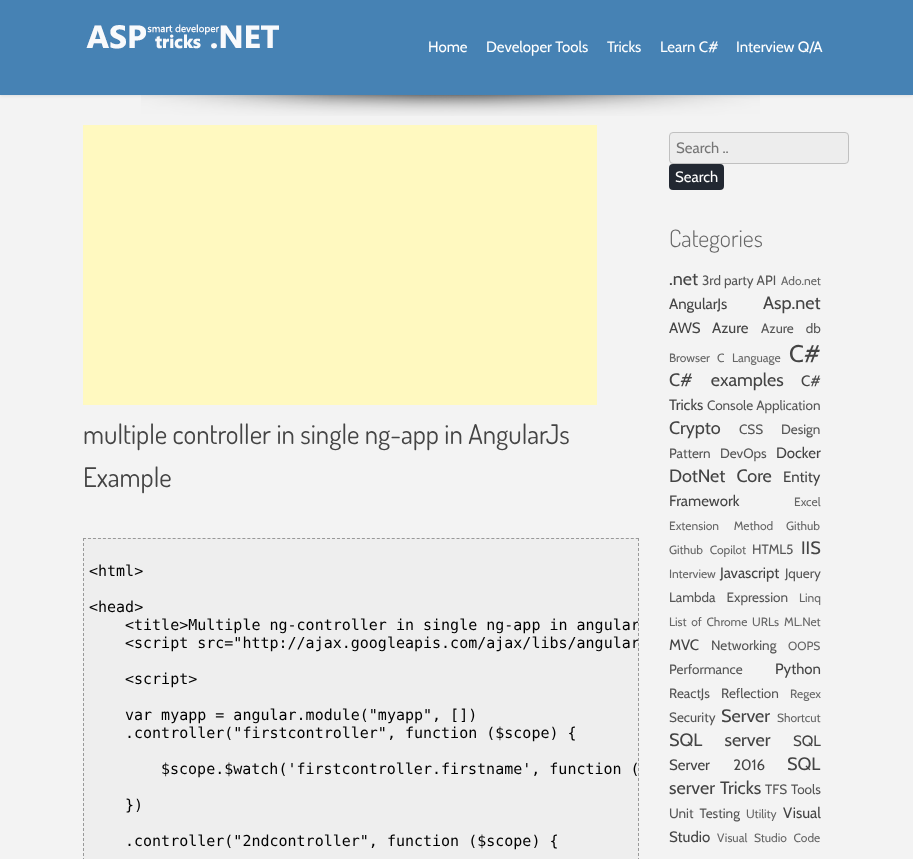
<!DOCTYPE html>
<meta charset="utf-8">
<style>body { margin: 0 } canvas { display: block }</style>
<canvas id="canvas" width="913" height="859"></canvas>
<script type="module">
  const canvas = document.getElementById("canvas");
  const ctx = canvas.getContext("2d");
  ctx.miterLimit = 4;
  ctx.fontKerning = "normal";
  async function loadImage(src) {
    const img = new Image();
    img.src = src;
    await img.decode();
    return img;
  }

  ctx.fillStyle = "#f3f3f3";
  ctx.fillRect(0, 0, 913, 859);
  ctx.fillStyle = "#dddddd";
  ctx.filter = "blur(1.5px)";
  ctx.beginPath();
  ctx.rect(0, 1, 913, 95);
  ctx.fill();
  ctx.filter = "none";
  ctx.fillStyle = "#4682b4";
  ctx.fillRect(0, 0, 913, 95);
  ctx.drawImage(await loadImage("img1.png"), 86, 24, 193, 25);
  ctx.font = "15px Cabin";
  ctx.fillStyle = "#ffffff";
  ctx.fillText("Home", 428, 52);
  ctx.fillText("Developer Tools", 486, 52);
  ctx.fillText("Tricks", 607, 52);
  ctx.fillText("Learn C#", 660, 52);
  ctx.fillText("Interview Q/A", 736, 52);
  ctx.drawImage(await loadImage("img2.png"), 141, 95, 619, 21);
  ctx.fillStyle = "#fff9c0";
  ctx.fillRect(83, 125, 514, 280);
  ctx.font = "27px Dosis";
  ctx.fillStyle = "#444444";
  ctx.fillText("multiple controller in single ng-app in AngularJs", 83, 444);
  ctx.fillText("Example", 83, 487);
  ctx.fillStyle = "#eeeeee";
  ctx.fillRect(83, 538, 556, 321);
  ctx.beginPath();
  ctx.moveTo(83, 538.5);
  ctx.lineTo(639, 538.5);
  ctx.strokeStyle = "#999999";
  ctx.setLineDash([3, 1.98]);
  ctx.stroke();
  ctx.beginPath();
  ctx.moveTo(638.5, 538);
  ctx.lineTo(638.5, 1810);
  ctx.setLineDash([3, 2]);
  ctx.stroke();
  ctx.beginPath();
  ctx.moveTo(83.5, 538);
  ctx.lineTo(83.5, 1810);
  ctx.stroke();
  ctx.font = "15px DejaVu Sans Mono";
  ctx.fillStyle = "#000000";
  ctx.fillText("<html>", 89, 576);
  ctx.fillText("<head>", 89, 612);
  ctx.save();
  ctx.beginPath();
  ctx.rect(84, 539, 554, 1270);
  ctx.clip();
  ctx.fillText("<title>Multiple ng-controller in single ng-app in angular", 125, 630);
  ctx.fillText("<script src=\"http://ajax.googleapis.com/ajax/libs/angular", 125, 648);
  ctx.restore();
  ctx.fillText("<script>", 125, 684);
  ctx.fillText("var myapp = angular.module(\"myapp\", [])", 125, 720);
  ctx.fillText(".controller(\"firstcontroller\", function ($scope) {", 125, 738);
  ctx.fillText("$scope.$watch('firstcontroller.firstname', function (", 161, 774);
  ctx.fillText("})", 125, 810);
  ctx.fillText(".controller(\"2ndcontroller\", function ($scope) {", 125, 846);
  ctx.fillStyle = "#ededed";
  ctx.beginPath();
  ctx.roundRect(669.5, 132.5, 179, 31, 3.5);
  ctx.fill();
  ctx.strokeStyle = "#c0c0c0";
  ctx.setLineDash([]);
  ctx.stroke();
  ctx.font = "15px Cabin";
  ctx.fillStyle = "#757575";
  ctx.fillText("Search ..", 676, 153);
  ctx.fillStyle = "#222832";
  ctx.beginPath();
  ctx.roundRect(669, 164, 55, 26, 4);
  ctx.fill();
  ctx.fillStyle = "#ffffff";
  ctx.fillText("Search", 675, 182);
  ctx.font = "300 24px Dosis";
  ctx.fillStyle = "#666666";
  ctx.fillText("Categories", 669, 247);
  ctx.font = "18px Cabin";
  ctx.fillStyle = "#444444";
  ctx.fillText(".net", 669, 285);
  ctx.font = "13.5px Cabin";
  ctx.fillStyle = "#565656";
  ctx.fillText("3rd party API", 702, 285);
  ctx.font = "12px Cabin";
  ctx.fillStyle = "#666666";
  ctx.fillText("Ado.net", 781, 285);
  ctx.font = "15px Cabin";
  ctx.fillStyle = "#444444";
  ctx.fillText("AngularJs", 669, 309);
  ctx.font = "18px Cabin";
  ctx.fillText("Asp.net", 763, 309);
  ctx.font = "15px Cabin";
  ctx.fillText("AWS", 669, 333);
  ctx.fillText("Azure", 712, 333);
  ctx.wordSpacing = "9px";
  ctx.font = "13.5px Cabin";
  ctx.fillStyle = "#565656";
  ctx.fillText("Azure db", 761, 333);
  ctx.wordSpacing = "0px";
  ctx.font = "12px Cabin";
  ctx.fillStyle = "#666666";
  ctx.fillText("Browser", 669, 362);
  ctx.wordSpacing = "5px";
  ctx.fillText("C Language", 717, 362);
  ctx.wordSpacing = "0px";
  ctx.font = "24px Cabin";
  ctx.fillStyle = "#444444";
  ctx.fillText("C#", 789, 362);
  ctx.wordSpacing = "14px";
  ctx.font = "18px Cabin";
  ctx.fillText("C# examples", 669, 386);
  ctx.wordSpacing = "0px";
  ctx.font = "15px Cabin";
  ctx.fillText("C#", 801, 386);
  ctx.fillText("Tricks", 669, 410);
  ctx.font = "13.5px Cabin";
  ctx.fillStyle = "#565656";
  ctx.fillText("Console Application", 707, 410);
  ctx.font = "18px Cabin";
  ctx.fillStyle = "#444444";
  ctx.fillText("Crypto", 669, 434);
  ctx.font = "13.5px Cabin";
  ctx.fillStyle = "#565656";
  ctx.fillText("CSS", 739, 434);
  ctx.fillText("Design", 781, 434);
  ctx.fillText("Pattern", 669, 458);
  ctx.fillText("DevOps", 720, 458);
  ctx.font = "15px Cabin";
  ctx.fillStyle = "#444444";
  ctx.fillText("Docker", 776, 458);
  ctx.wordSpacing = "7px";
  ctx.font = "18px Cabin";
  ctx.fillText("DotNet Core", 669, 482);
  ctx.wordSpacing = "0px";
  ctx.font = "15px Cabin";
  ctx.fillText("Entity", 783, 482);
  ctx.fillText("Framework", 669, 506);
  ctx.font = "12px Cabin";
  ctx.fillStyle = "#666666";
  ctx.fillText("Excel", 794, 506);
  ctx.wordSpacing = "12px";
  ctx.fillText("Extension Method", 669, 530);
  ctx.wordSpacing = "0px";
  ctx.fillText("Github", 786, 530);
  ctx.wordSpacing = "4px";
  ctx.fillText("Github Copilot", 669, 554);
  ctx.wordSpacing = "0px";
  ctx.font = "13.5px Cabin";
  ctx.fillStyle = "#565656";
  ctx.fillText("HTML5", 752, 554);
  ctx.font = "18px Cabin";
  ctx.fillStyle = "#444444";
  ctx.fillText("IIS", 801, 554);
  ctx.font = "12px Cabin";
  ctx.fillStyle = "#666666";
  ctx.fillText("Interview", 669, 578);
  ctx.font = "15px Cabin";
  ctx.fillStyle = "#444444";
  ctx.fillText("Javascript", 720, 578);
  ctx.font = "13.5px Cabin";
  ctx.fillStyle = "#565656";
  ctx.fillText("Jquery", 785, 578);
  ctx.wordSpacing = "8px";
  ctx.fillText("Lambda Expression", 669, 602);
  ctx.wordSpacing = "0px";
  ctx.font = "12px Cabin";
  ctx.fillStyle = "#666666";
  ctx.fillText("Linq", 799, 602);
  ctx.wordSpacing = "2px";
  ctx.fillText("List of Chrome URLs", 669, 626);
  ctx.wordSpacing = "0px";
  ctx.fillText("ML.Net", 784, 626);
  ctx.font = "15px Cabin";
  ctx.fillStyle = "#444444";
  ctx.fillText("MVC", 669, 650);
  ctx.font = "13.5px Cabin";
  ctx.fillStyle = "#565656";
  ctx.fillText("Networking", 711, 650);
  ctx.font = "12px Cabin";
  ctx.fillStyle = "#666666";
  ctx.fillText("OOPS", 788, 650);
  ctx.font = "13.5px Cabin";
  ctx.fillStyle = "#565656";
  ctx.fillText("Performance", 669, 674);
  ctx.font = "15px Cabin";
  ctx.fillStyle = "#444444";
  ctx.fillText("Python", 775, 674);
  ctx.font = "13.5px Cabin";
  ctx.fillStyle = "#565656";
  ctx.fillText("ReactJs", 669, 698);
  ctx.fillText("Reflection", 721, 698);
  ctx.font = "12px Cabin";
  ctx.fillStyle = "#666666";
  ctx.fillText("Regex", 790, 698);
  ctx.font = "13.5px Cabin";
  ctx.fillStyle = "#565656";
  ctx.fillText("Security", 669, 722);
  ctx.font = "18px Cabin";
  ctx.fillStyle = "#444444";
  ctx.fillText("Server", 721, 722);
  ctx.font = "12px Cabin";
  ctx.fillStyle = "#666666";
  ctx.fillText("Shortcut", 777, 722);
  ctx.wordSpacing = "18px";
  ctx.font = "18px Cabin";
  ctx.fillStyle = "#444444";
  ctx.fillText("SQL server", 669, 746);
  ctx.wordSpacing = "0px";
  ctx.font = "15px Cabin";
  ctx.fillText("SQL", 793, 746);
  ctx.wordSpacing = "20px";
  ctx.fillText("Server 2016", 669, 770);
  ctx.wordSpacing = "0px";
  ctx.font = "18px Cabin";
  ctx.fillText("SQL", 787, 770);
  ctx.wordSpacing = "1px";
  ctx.fillText("server Tricks", 669, 794);
  ctx.wordSpacing = "0px";
  ctx.font = "13.5px Cabin";
  ctx.fillStyle = "#565656";
  ctx.fillText("TFS", 765, 794);
  ctx.fillText("Tools", 791, 794);
  ctx.wordSpacing = "3px";
  ctx.fillText("Unit Testing", 669, 818);
  ctx.wordSpacing = "0px";
  ctx.font = "12px Cabin";
  ctx.fillStyle = "#666666";
  ctx.fillText("Utility", 746, 818);
  ctx.font = "15px Cabin";
  ctx.fillStyle = "#444444";
  ctx.fillText("Visual", 783, 818);
  ctx.fillText("Studio", 669, 842);
  ctx.wordSpacing = "4px";
  ctx.font = "12px Cabin";
  ctx.fillStyle = "#666666";
  ctx.fillText("Visual Studio Code", 717, 842);
</script>
